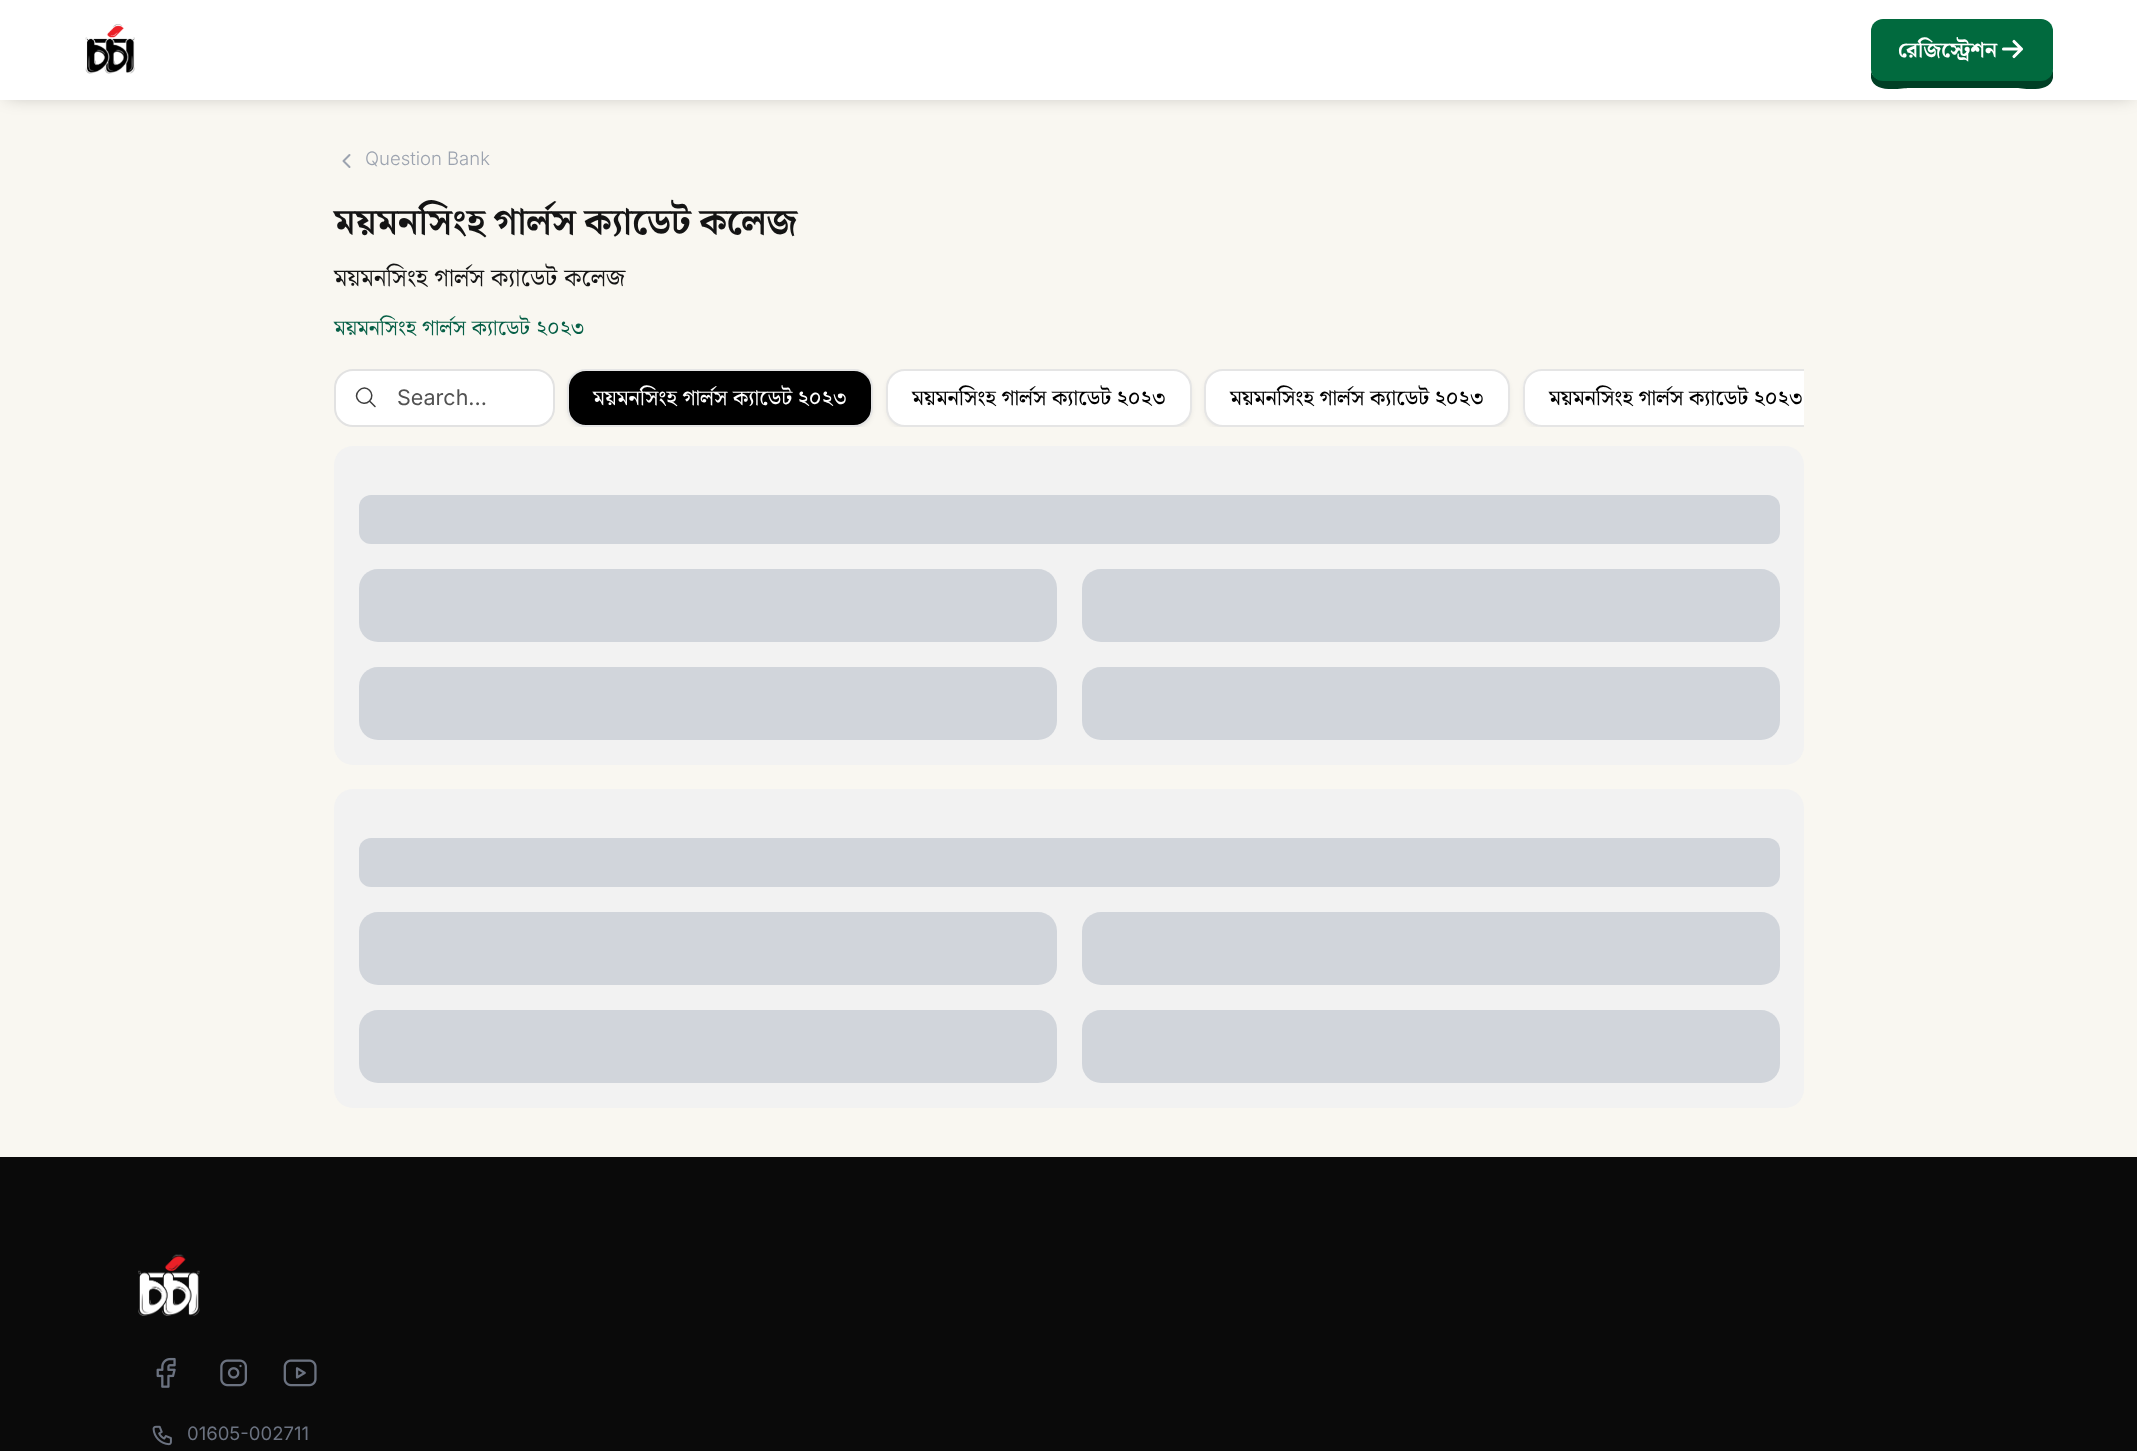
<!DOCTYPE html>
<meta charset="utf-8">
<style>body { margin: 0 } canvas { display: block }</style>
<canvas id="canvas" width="2137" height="1451"></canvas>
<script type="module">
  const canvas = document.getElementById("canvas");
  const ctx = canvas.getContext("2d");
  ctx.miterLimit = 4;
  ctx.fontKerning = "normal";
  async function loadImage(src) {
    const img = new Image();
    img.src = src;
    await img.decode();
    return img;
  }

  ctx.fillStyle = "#ffffff";
  ctx.fillRect(0, 0, 2137, 1451);
  ctx.fillStyle = "#f9f7f1";
  ctx.fillRect(0, 100, 2137, 1057);
  ctx.save();
  ctx.beginPath();
  ctx.moveTo(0, 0);
  ctx.lineTo(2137, 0);
  ctx.lineTo(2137, 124);
  ctx.lineTo(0, 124);
  ctx.closePath();
  ctx.moveTo(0, 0);
  ctx.lineTo(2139, 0);
  ctx.lineTo(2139, 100);
  ctx.lineTo(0, 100);
  ctx.closePath();
  ctx.clip("evenodd");
  ctx.fillStyle = "rgba(0, 0, 0, 0.25)";
  ctx.filter = "blur(9px)";
  ctx.beginPath();
  ctx.rect(7, 11, 2125, 85);
  ctx.fill();
  ctx.filter = "none";
  ctx.restore();
  ctx.drawImage(await loadImage("img1.png"), 85, 24, 50, 50);
  ctx.fillStyle = "#003f25";
  ctx.beginPath();
  ctx.moveTo(1871, 71);
  ctx.lineTo(1871, 78);
  ctx.bezierCurveTo(1874, 94, 1902, 88, 1909, 88);
  ctx.lineTo(2015, 88);
  ctx.bezierCurveTo(2022, 88, 2050, 94, 2053, 78);
  ctx.lineTo(2053, 36);
  ctx.lineTo(2053, 68);
  ctx.bezierCurveTo(2053, 75, 2047, 80, 2040, 80);
  ctx.lineTo(1883, 80);
  ctx.bezierCurveTo(1877, 80, 1872, 76, 1871, 71);
  ctx.closePath();
  ctx.fill();
  ctx.fillStyle = "#016a3e";
  ctx.beginPath();
  ctx.roundRect(1871, 19, 182, 62, 12);
  ctx.fill();
  ctx.font = "bold 21.5px Noto Serif Bengali";
  ctx.fillStyle = "#ffffff";
  ctx.fillText("রেজিস্ট্রেশন", 1898, 57);
  ctx.beginPath();
  ctx.moveTo(2014, 41.5);
  ctx.lineTo(2021.5, 49);
  ctx.moveTo(2021.5, 49);
  ctx.lineTo(2014, 56.5);
  ctx.moveTo(2021.5, 49);
  ctx.lineTo(2003.5, 49);
  ctx.strokeStyle = "#ffffff";
  ctx.lineWidth = 3.1;
  ctx.lineCap = "round";
  ctx.lineJoin = "round";
  ctx.stroke();
  ctx.beginPath();
  ctx.moveTo(349.5, 155);
  ctx.lineTo(343.5, 161);
  ctx.lineTo(349.5, 167);
  ctx.strokeStyle = "#9ca3af";
  ctx.lineWidth = 2;
  ctx.stroke();
  ctx.font = "300 18.5px Inter";
  ctx.fillStyle = "#9ca3af";
  ctx.fillText("Question Bank", 365, 165);
  ctx.wordSpacing = "-1px";
  ctx.font = "bold 36.75px Noto Serif Bengali";
  ctx.fillStyle = "#141414";
  ctx.fillText("ময়মনসিংহ গার্লস ক্যাডেট কলেজ", 334, 234);
  ctx.wordSpacing = "0.5px";
  ctx.font = "24.5px Noto Serif Bengali";
  ctx.fillText("ময়মনসিংহ গার্লস ক্যাডেট কলেজ", 334, 286);
  ctx.font = "21.5px Noto Serif Bengali";
  ctx.fillStyle = "#065f46";
  ctx.fillText("ময়মনসিংহ গার্লস ক্যাডেট ২০২৩", 334, 335);
  ctx.fillStyle = "#ffffff";
  ctx.beginPath();
  ctx.roundRect(335, 370, 219, 56, 18);
  ctx.fill();
  ctx.strokeStyle = "#e2e2e2";
  ctx.lineJoin = "miter";
  ctx.stroke();
  ctx.beginPath();
  ctx.moveTo(375, 406.5);
  ctx.lineTo(369.5, 401);
  ctx.moveTo(369.5, 401);
  ctx.bezierCurveTo(376.5, 394, 366, 383, 359, 390.5);
  ctx.bezierCurveTo(351.5, 397.5, 362.5, 408, 369.5, 401);
  ctx.closePath();
  ctx.strokeStyle = "#3e3e3e";
  ctx.lineWidth = 1.5;
  ctx.lineJoin = "round";
  ctx.stroke();
  ctx.wordSpacing = "0px";
  ctx.font = "21.5px Inter";
  ctx.fillStyle = "#525252";
  ctx.fillText("Search...", 397, 405);
  ctx.save();
  ctx.beginPath();
  ctx.rect(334, 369, 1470, 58);
  ctx.clip();
  ctx.fillStyle = "rgba(0, 0, 0, 0.05)";
  ctx.filter = "blur(2px)";
  ctx.beginPath();
  ctx.roundRect(567, 371, 306, 58, 19);
  ctx.fill();
  ctx.filter = "none";
  ctx.restore();
  ctx.fillStyle = "#000000";
  ctx.beginPath();
  ctx.roundRect(568, 370, 304, 56, 18);
  ctx.fill();
  ctx.strokeStyle = "#e5e5e5";
  ctx.lineWidth = 2;
  ctx.lineJoin = "miter";
  ctx.stroke();
  ctx.font = "500 21.5px Noto Serif Bengali";
  ctx.fillStyle = "#ffffff";
  ctx.fillText("ময়মনসিংহ গার্লস ক্যাডেট ২০২৩", 593, 405);
  ctx.save();
  ctx.beginPath();
  ctx.rect(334, 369, 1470, 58);
  ctx.clip();
  ctx.fillStyle = "rgba(0, 0, 0, 0.05)";
  ctx.filter = "blur(2px)";
  ctx.beginPath();
  ctx.roundRect(886, 371, 306, 58, 19);
  ctx.fill();
  ctx.filter = "none";
  ctx.restore();
  ctx.beginPath();
  ctx.roundRect(887, 370, 304, 56, 18);
  ctx.fill();
  ctx.stroke();
  ctx.fillStyle = "#000000";
  ctx.fillText("ময়মনসিংহ গার্লস ক্যাডেট ২০২৩", 912, 405);
  ctx.save();
  ctx.beginPath();
  ctx.rect(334, 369, 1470, 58);
  ctx.clip();
  ctx.fillStyle = "rgba(0, 0, 0, 0.05)";
  ctx.filter = "blur(2px)";
  ctx.beginPath();
  ctx.roundRect(1204, 371, 306, 58, 19);
  ctx.fill();
  ctx.filter = "none";
  ctx.restore();
  ctx.fillStyle = "#ffffff";
  ctx.beginPath();
  ctx.roundRect(1205, 370, 304, 56, 18);
  ctx.fill();
  ctx.stroke();
  ctx.fillStyle = "#000000";
  ctx.fillText("ময়মনসিংহ গার্লস ক্যাডেট ২০২৩", 1230, 405);
  ctx.save();
  ctx.beginPath();
  ctx.rect(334, 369, 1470, 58);
  ctx.clip();
  ctx.fillStyle = "rgba(0, 0, 0, 0.05)";
  ctx.filter = "blur(2px)";
  ctx.beginPath();
  ctx.roundRect(1523, 371, 306, 58, 19);
  ctx.fill();
  ctx.filter = "none";
  ctx.restore();
  ctx.fillStyle = "#ffffff";
  ctx.beginPath();
  ctx.roundRect(1523, 369, 281, 58, [19, 0, 0, 19]);
  ctx.fill();
  ctx.save();
  ctx.beginPath();
  ctx.rect(334, 369, 1470, 58);
  ctx.clip();
  ctx.beginPath();
  ctx.roundRect(1524, 370, 304, 56, 18);
  ctx.stroke();
  ctx.restore();
  ctx.fillStyle = "#000000";
  ctx.fillText("ময়মনসিংহ গার্লস ক্যাডেট ২০২৩", 1549, 405);
  ctx.fillStyle = "#f2f2f2";
  ctx.beginPath();
  ctx.roundRect(334, 446, 1470, 319, 19);
  ctx.fill();
  ctx.fillStyle = "#d1d5db";
  ctx.beginPath();
  ctx.roundRect(359, 495, 1421, 49, 12);
  ctx.fill();
  ctx.beginPath();
  ctx.roundRect(359, 569, 698, 73, 19);
  ctx.fill();
  ctx.beginPath();
  ctx.roundRect(1082, 569, 698, 73, 19);
  ctx.fill();
  ctx.beginPath();
  ctx.roundRect(359, 667, 698, 73, 19);
  ctx.fill();
  ctx.beginPath();
  ctx.roundRect(1082, 667, 698, 73, 19);
  ctx.fill();
  ctx.fillStyle = "#f2f2f2";
  ctx.beginPath();
  ctx.roundRect(334, 789, 1470, 319, 19);
  ctx.fill();
  ctx.fillStyle = "#d1d5db";
  ctx.beginPath();
  ctx.roundRect(359, 838, 1421, 49, 12);
  ctx.fill();
  ctx.beginPath();
  ctx.roundRect(359, 912, 698, 73, 19);
  ctx.fill();
  ctx.beginPath();
  ctx.roundRect(1082, 912, 698, 73, 19);
  ctx.fill();
  ctx.beginPath();
  ctx.roundRect(359, 1010, 698, 73, 19);
  ctx.fill();
  ctx.beginPath();
  ctx.roundRect(1082, 1010, 698, 73, 19);
  ctx.fill();
  ctx.fillStyle = "#0a0a0a";
  ctx.fillRect(0, 1157, 2137, 294);
  ctx.drawImage(await loadImage("img2.png"), 138, 1254, 62, 62);
  ctx.drawImage(await loadImage("img3.png"), 156, 1357, 20, 31);
  ctx.drawImage(await loadImage("img4.png"), 220, 1359, 27, 28);
  ctx.drawImage(await loadImage("img5.png"), 283, 1359, 34, 28);
  ctx.drawImage(await loadImage("img6.png"), 152, 1425, 20, 21);
  ctx.font = "18.5px Inter";
  ctx.fillStyle = "#6b7280";
  ctx.fillText("01605-002711", 187, 1440);
</script>
